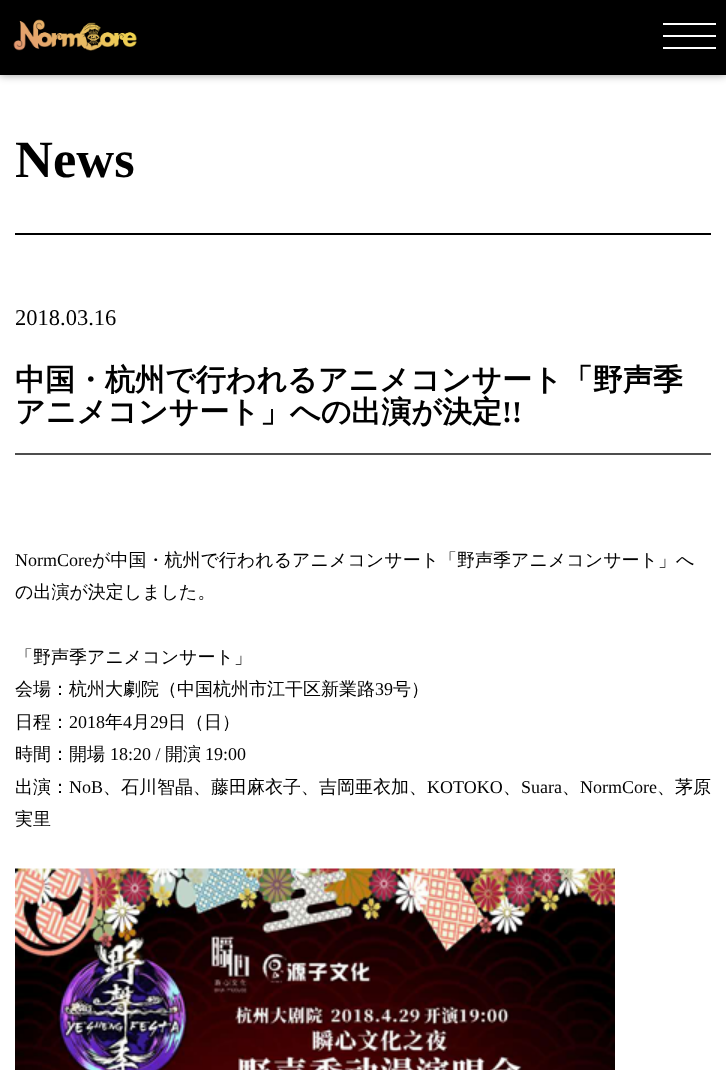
<!DOCTYPE html>
<meta charset="utf-8">
<style>body { margin: 0 } canvas { display: block }</style>
<canvas id="canvas" width="726" height="1070"></canvas>
<script type="module">
  const canvas = document.getElementById("canvas");
  const ctx = canvas.getContext("2d");
  ctx.miterLimit = 4;
  ctx.fontKerning = "normal";
  async function loadImage(src) {
    const img = new Image();
    img.src = src;
    await img.decode();
    return img;
  }

  ctx.fillStyle = "#ffffff";
  ctx.fillRect(0, 0, 726, 1070);
  ctx.fillStyle = "rgba(0, 0, 0, 0.4)";
  ctx.filter = "blur(4px)";
  ctx.beginPath();
  ctx.rect(0, 0, 726, 75);
  ctx.fill();
  ctx.filter = "none";
  ctx.fillStyle = "#000000";
  ctx.fillRect(0, 0, 726, 75);
  ctx.drawImage(await loadImage("img1.png"), 13, 19, 124, 32);
  ctx.fillStyle = "#ffffff";
  ctx.fillRect(663, 35, 53, 2);
  ctx.fillRect(663, 23, 53, 2);
  ctx.fillRect(663, 47, 53, 2);
  ctx.fillStyle = "#000000";
  ctx.fillRect(15, 233, 696, 2);
  ctx.font = "bold 52.5px Liberation Serif";
  ctx.fillText("News", 15, 177);
  ctx.font = "22.5px Liberation Serif";
  ctx.fillText("2018.03.16", 15, 325);
  ctx.fillStyle = "#4d4d4d";
  ctx.fillRect(15, 453, 696, 2);
  ctx.font = "bold 30px WenQuanYi Zen Hei";
  ctx.fillStyle = "#000000";
  ctx.fillText("中国・杭州で行われるアニメコンサート「野声季", 15, 390);
  ctx.fillText("アニメコンサート」への出演が決定", 15, 422);
  ctx.font = "bold 30px Liberation Serif";
  ctx.fillText("!!", 502, 422);
  ctx.font = "18px Liberation Serif";
  ctx.fillText("NormCore", 15, 566);
  ctx.font = "500 18px WenQuanYi Zen Hei";
  ctx.fillText("が中国・杭州で行われるアニメコンサート「野声季アニメコンサート」へ", 92, 566);
  ctx.fillText("の出演が決定しました。", 15, 598);
  ctx.fillText("「野声季アニメコンサート」", 15, 663);
  ctx.fillText("会場：杭州大劇院（中国杭州市江干区新業路", 15, 695);
  ctx.font = "18px Liberation Serif";
  ctx.fillText("39", 375, 695);
  ctx.font = "500 18px WenQuanYi Zen Hei";
  ctx.fillText("号）", 393, 695);
  ctx.fillText("日程：", 15, 728);
  ctx.font = "18px Liberation Serif";
  ctx.fillText("2018", 69, 728);
  ctx.font = "500 18px WenQuanYi Zen Hei";
  ctx.fillText("年", 105, 728);
  ctx.font = "18px Liberation Serif";
  ctx.fillText("4", 123, 728);
  ctx.font = "500 18px WenQuanYi Zen Hei";
  ctx.fillText("月", 132, 728);
  ctx.font = "18px Liberation Serif";
  ctx.fillText("29", 150, 728);
  ctx.font = "500 18px WenQuanYi Zen Hei";
  ctx.fillText("日（日）", 168, 728);
  ctx.fillText("時間：開場", 15, 760);
  ctx.font = "18px Liberation Serif";
  ctx.fillText("18:20 /", 110, 760);
  ctx.font = "500 18px WenQuanYi Zen Hei";
  ctx.fillText("開演", 165, 760);
  ctx.font = "18px Liberation Serif";
  ctx.fillText("19:00", 205, 760);
  ctx.font = "500 18px WenQuanYi Zen Hei";
  ctx.fillText("出演：", 15, 793);
  ctx.font = "18px Liberation Serif";
  ctx.fillText("NoB", 69, 793);
  ctx.font = "500 18px WenQuanYi Zen Hei";
  ctx.fillText("、石川智晶、藤田麻衣子、吉岡亜衣加、", 103, 793);
  ctx.font = "18px Liberation Serif";
  ctx.fillText("KOTOKO", 427, 793);
  ctx.font = "500 18px WenQuanYi Zen Hei";
  ctx.fillText("、", 503, 793);
  ctx.font = "18px Liberation Serif";
  ctx.fillText("Suara", 521, 793);
  ctx.font = "500 18px WenQuanYi Zen Hei";
  ctx.fillText("、", 562, 793);
  ctx.font = "18px Liberation Serif";
  ctx.fillText("NormCore", 580, 793);
  ctx.font = "500 18px WenQuanYi Zen Hei";
  ctx.fillText("、茅原", 657, 793);
  ctx.fillText("実里", 15, 825);
  ctx.drawImage(await loadImage("img2.png"), 15, 868, 600, 202);
</script>
